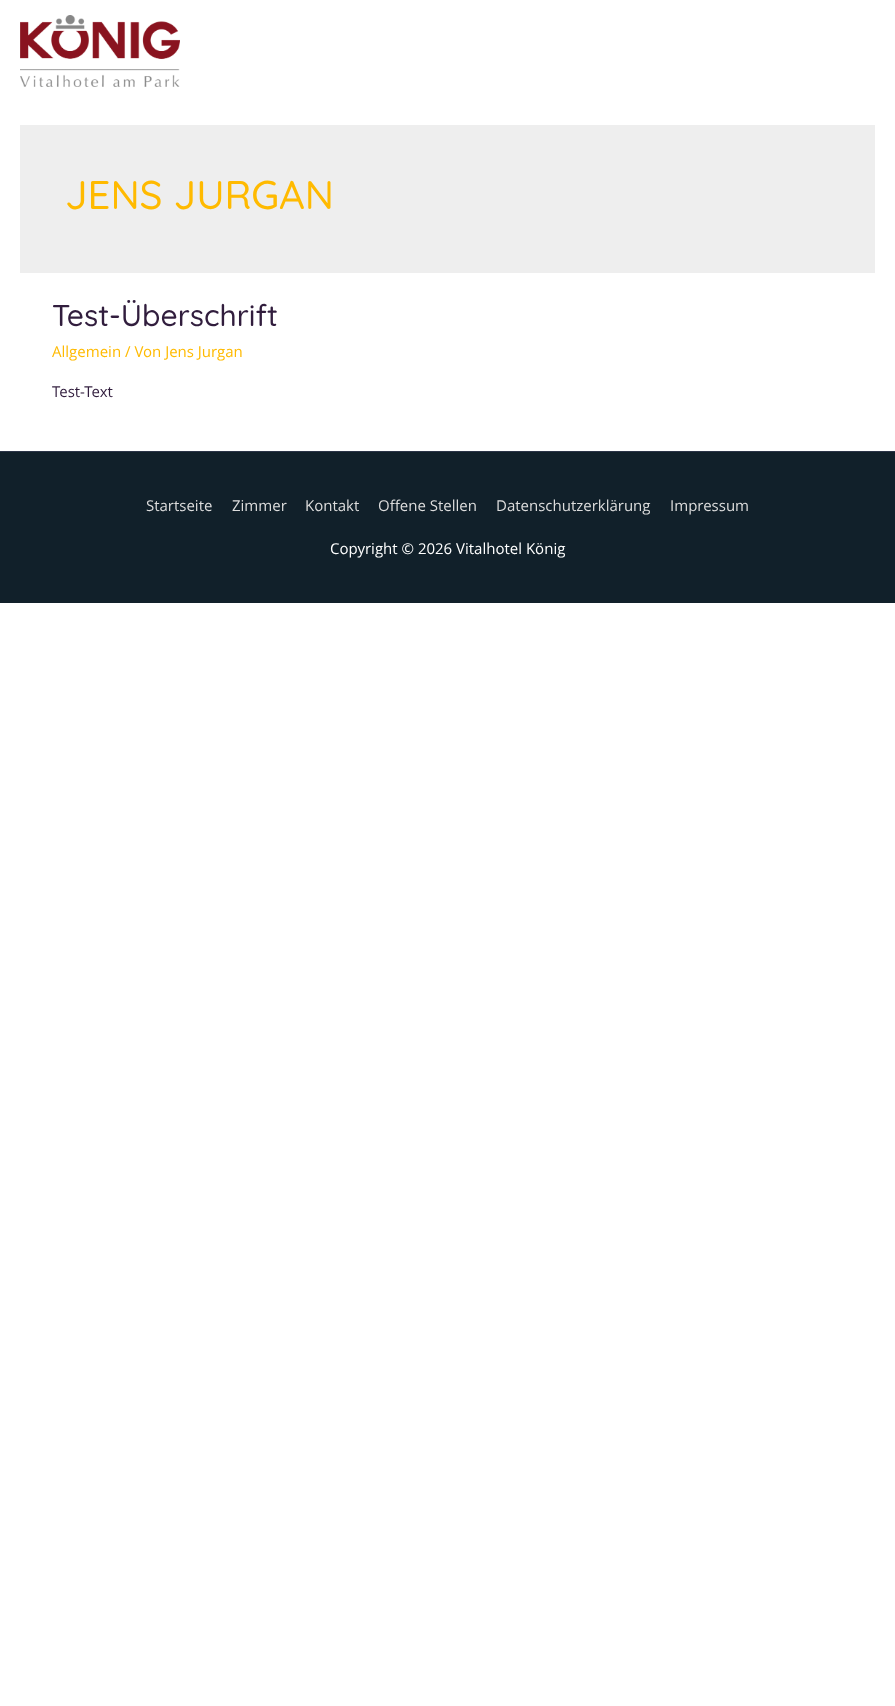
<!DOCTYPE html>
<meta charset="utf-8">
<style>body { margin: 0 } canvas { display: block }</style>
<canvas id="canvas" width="895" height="1706"></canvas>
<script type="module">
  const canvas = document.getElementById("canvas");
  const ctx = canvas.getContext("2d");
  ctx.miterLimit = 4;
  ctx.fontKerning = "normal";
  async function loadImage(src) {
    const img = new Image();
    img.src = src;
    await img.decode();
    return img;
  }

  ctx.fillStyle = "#ffffff";
  ctx.fillRect(0, 0, 895, 1706);
  ctx.drawImage(await loadImage("img1.png"), 20, 15, 160, 72);
  ctx.fillStyle = "#eeeeee";
  ctx.fillRect(20, 125, 855, 148);
  ctx.font = "500 40px Quicksand";
  ctx.fillStyle = "#ffba00";
  ctx.fillText("JENS JURGAN", 65, 209);
  ctx.font = "500 30px Quicksand";
  ctx.fillStyle = "#311d3d";
  ctx.fillText("Test-Überschrift", 52, 326);
  ctx.font = "15px Open Sans";
  ctx.fillStyle = "#ffba00";
  ctx.fillText("Allgemein / Von Jens Jurgan", 52, 357);
  ctx.fillStyle = "#311d3d";
  ctx.fillText("Test-Text", 52, 397);
  ctx.fillStyle = "#2b3447";
  ctx.fillRect(0, 451, 895, 1);
  ctx.fillStyle = "#11202a";
  ctx.fillRect(0, 452, 895, 151);
  ctx.fillStyle = "#dddddd";
  ctx.fillText("Startseite", 146, 511);
  ctx.fillText("Zimmer", 232, 511);
  ctx.fillText("Kontakt", 305, 511);
  ctx.fillText("Offene Stellen", 378, 511);
  ctx.fillText("Datenschutzerklärung", 496, 511);
  ctx.fillText("Impressum", 670, 511);
  ctx.fillStyle = "#ffffff";
  ctx.fillText("Copyright © 2026 Vitalhotel König", 330, 554);
</script>
